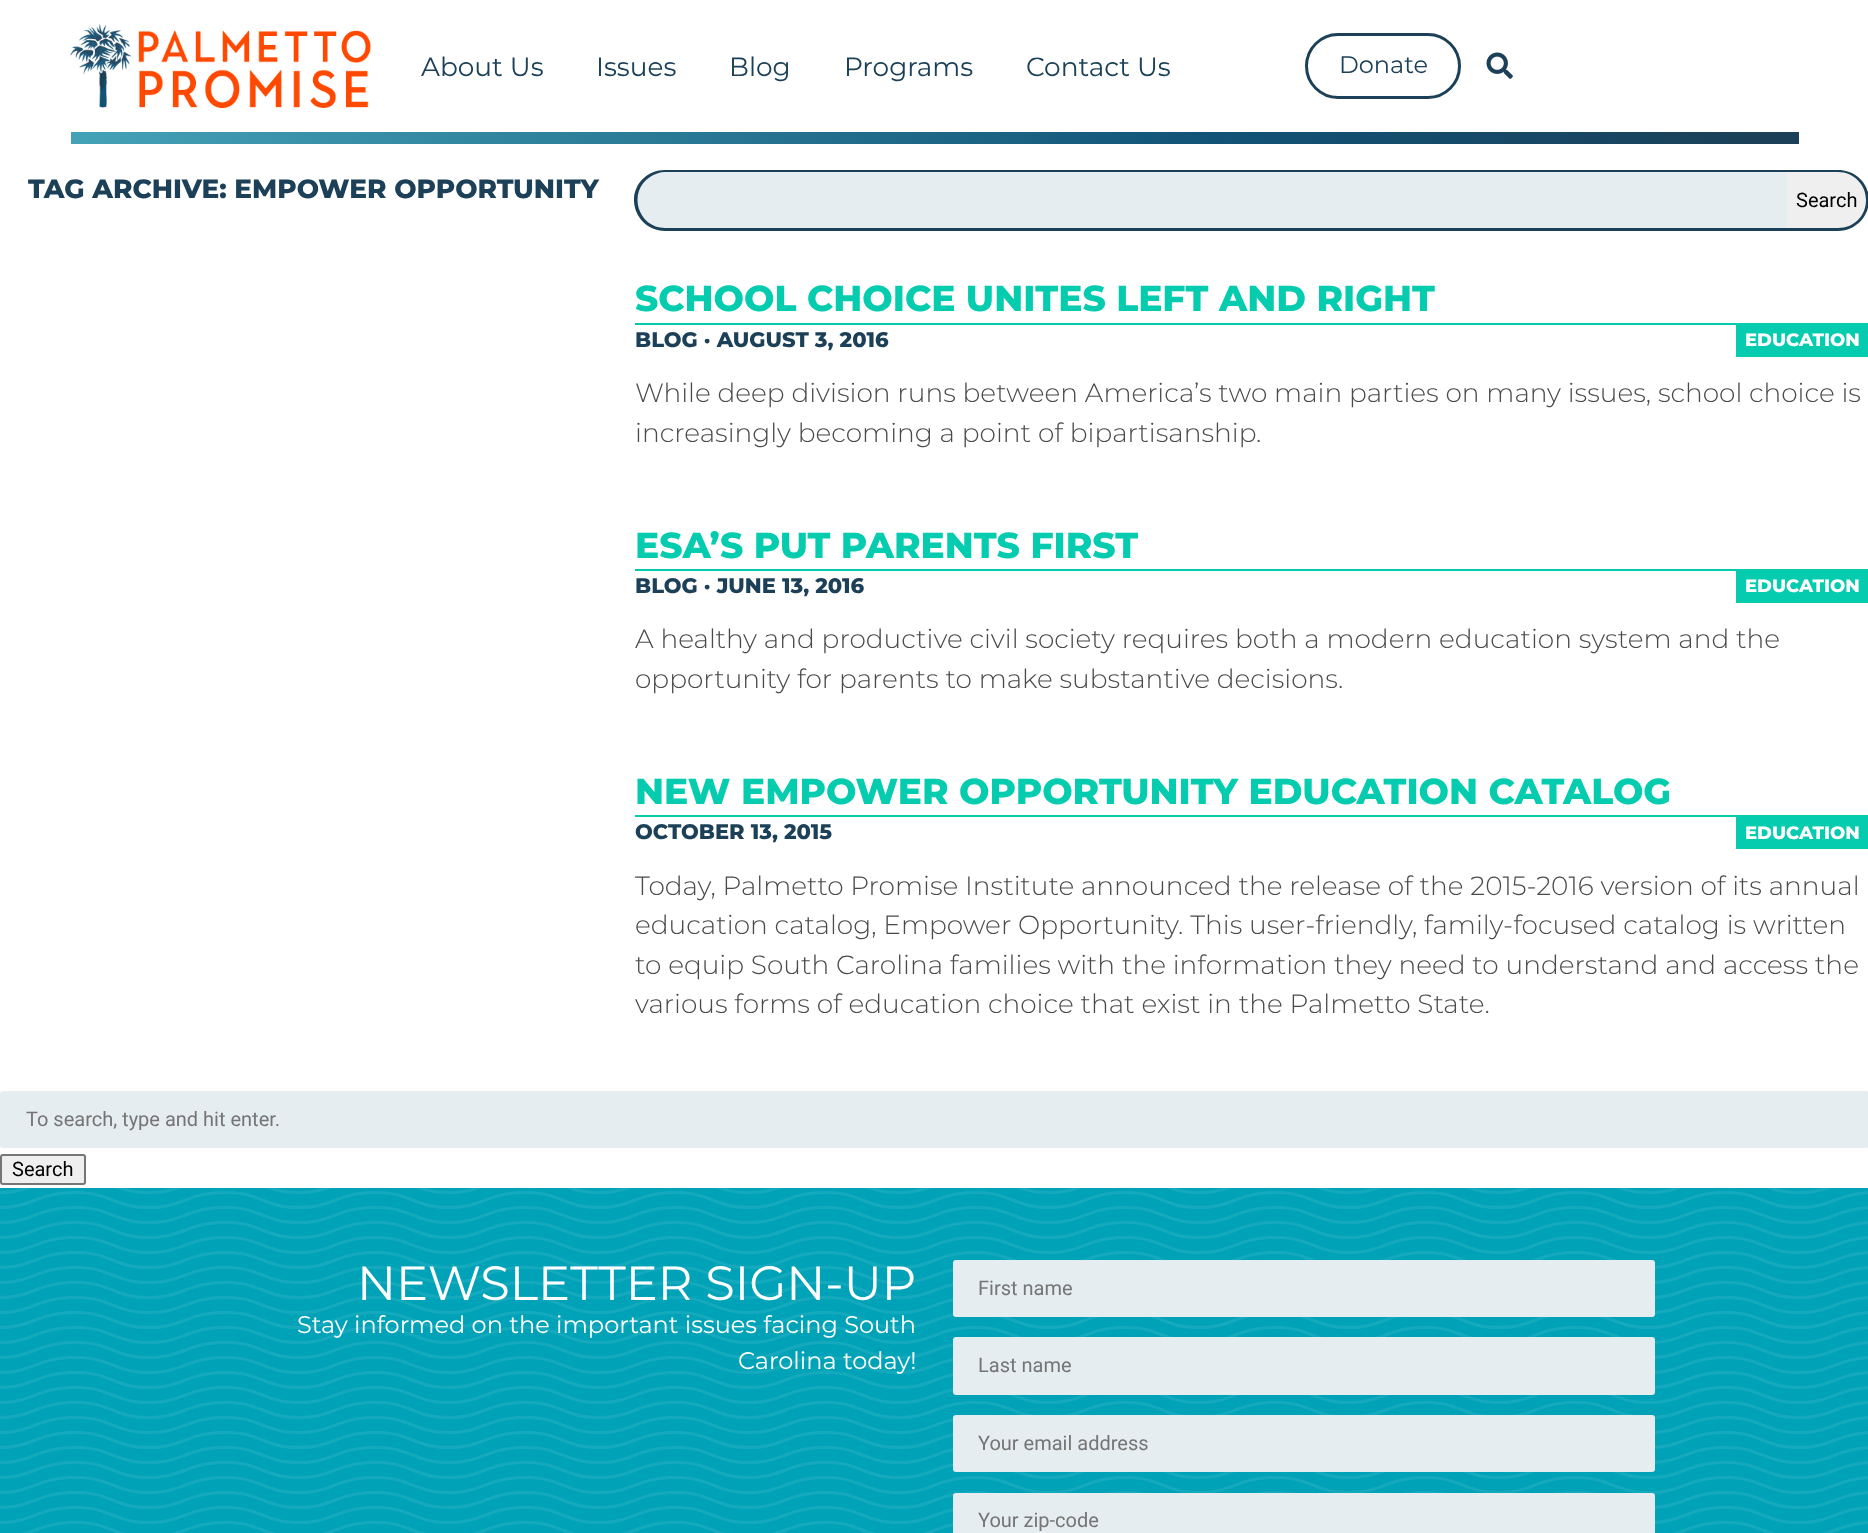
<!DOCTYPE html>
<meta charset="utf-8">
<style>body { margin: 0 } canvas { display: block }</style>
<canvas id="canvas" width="1868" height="1533"></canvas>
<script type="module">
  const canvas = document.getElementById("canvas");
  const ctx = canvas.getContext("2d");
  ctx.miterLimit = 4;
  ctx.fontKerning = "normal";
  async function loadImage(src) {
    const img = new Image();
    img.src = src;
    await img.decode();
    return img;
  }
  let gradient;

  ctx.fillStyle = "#ffffff";
  ctx.fillRect(0, 0, 1868, 1533);
  ctx.drawImage(await loadImage("img1.png"), 70, 24, 301, 84);
  ctx.font = "26.4px Montserrat";
  ctx.fillStyle = "#1c4057";
  ctx.fillText("About Us", 421, 76);
  ctx.fillText("Issues", 596, 76);
  ctx.fillText("Blog", 729, 76);
  ctx.fillText("Programs", 844, 76);
  ctx.fillText("Contact Us", 1026, 76);
  ctx.beginPath();
  ctx.roundRect(1306.5, 34.5, 153, 63, 31.5);
  ctx.strokeStyle = "#1c4057";
  ctx.lineWidth = 3;
  ctx.stroke();
  ctx.font = "24px Montserrat";
  ctx.fillText("Donate", 1339, 73);
  ctx.drawImage(await loadImage("img2.png"), 1486, 52, 27, 27);
  gradient = ctx.createLinearGradient(71, 138, 1799, 138);
  gradient.addColorStop(0, "#44a2b7");
  gradient.addColorStop(0.38, "#277592");
  gradient.addColorStop(0.66, "#115377");
  gradient.addColorStop(0.88, "#184662");
  gradient.addColorStop(0.99, "#1c4057");
  ctx.fillStyle = gradient;
  ctx.fillRect(71, 132, 1728, 12);
  ctx.font = "800 26.4px Montserrat";
  ctx.fillStyle = "#1c4057";
  ctx.fillText("TAG ARCHIVE: EMPOWER OPPORTUNITY", 28, 198);
  ctx.fillStyle = "#e6edf1";
  ctx.beginPath();
  ctx.roundRect(635, 170, 1152, 61, [30.5, 1, 1, 30.5]);
  ctx.fill();
  ctx.fillStyle = "#1c4057";
  ctx.beginPath();
  ctx.moveTo(665, 170);
  ctx.lineTo(1786, 170);
  ctx.lineTo(1786, 230);
  ctx.lineTo(1786, 231);
  ctx.lineTo(665, 231);
  ctx.bezierCurveTo(648, 231, 634, 217, 634, 200);
  ctx.bezierCurveTo(634, 183, 648, 170, 665, 170);
  ctx.closePath();
  ctx.moveTo(665, 172);
  ctx.lineTo(1786, 172);
  ctx.lineTo(1786, 228);
  ctx.lineTo(665, 228);
  ctx.bezierCurveTo(638, 228, 627, 192, 650, 177);
  ctx.bezierCurveTo(654, 174, 660, 172, 665, 172);
  ctx.closePath();
  ctx.fill("evenodd");
  ctx.fillStyle = "#efefef";
  ctx.beginPath();
  ctx.moveTo(1787, 170);
  ctx.lineTo(1838.5, 170);
  ctx.bezierCurveTo(1855.5, 170, 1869, 183.5, 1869, 200.5);
  ctx.bezierCurveTo(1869, 217.5, 1855.5, 231, 1838.5, 231);
  ctx.lineTo(1787, 231);
  ctx.closePath();
  ctx.fill();
  ctx.fillStyle = "#1c4057";
  ctx.beginPath();
  ctx.moveTo(1786, 170);
  ctx.lineTo(1838, 170);
  ctx.bezierCurveTo(1855, 170, 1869, 183, 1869, 200);
  ctx.bezierCurveTo(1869, 217, 1855, 231, 1838, 231);
  ctx.lineTo(1786, 231);
  ctx.closePath();
  ctx.moveTo(1786, 172);
  ctx.lineTo(1838, 172);
  ctx.bezierCurveTo(1854, 172, 1866, 185, 1866, 200);
  ctx.bezierCurveTo(1866, 216, 1854, 228, 1838, 228);
  ctx.lineTo(1786, 228);
  ctx.closePath();
  ctx.fill("evenodd");
  ctx.font = "20px Roboto";
  ctx.fillStyle = "#000000";
  ctx.fillText("Search", 1796, 207);
  ctx.font = "800 36px Montserrat";
  ctx.fillStyle = "#05ccaf";
  ctx.fillText("SCHOOL CHOICE UNITES LEFT AND RIGHT", 635, 311);
  ctx.fillRect(635, 323, 1233, 2);
  ctx.font = "800 21px Montserrat";
  ctx.fillStyle = "#1c4057";
  ctx.fillText("BLOG · AUGUST 3, 2016", 635, 347);
  ctx.fillStyle = "#05ccaf";
  ctx.fillRect(1736, 325, 132, 32);
  ctx.font = "800 18px Montserrat";
  ctx.fillStyle = "#ffffff";
  ctx.fillText("EDUCATION", 1745, 346);
  ctx.font = "300 26.4px Montserrat";
  ctx.fillStyle = "#4a4a4a";
  ctx.fillText("While deep division runs between America’s two main parties on many issues, school choice is", 635, 402);
  ctx.fillText("increasingly becoming a point of bipartisanship.", 635, 442);
  ctx.font = "800 36px Montserrat";
  ctx.fillStyle = "#05ccaf";
  ctx.fillText("ESA’S PUT PARENTS FIRST", 635, 558);
  ctx.fillRect(635, 569, 1233, 2);
  ctx.font = "800 21px Montserrat";
  ctx.fillStyle = "#1c4057";
  ctx.fillText("BLOG · JUNE 13, 2016", 635, 593);
  ctx.fillStyle = "#05ccaf";
  ctx.fillRect(1736, 571, 132, 32);
  ctx.font = "800 18px Montserrat";
  ctx.fillStyle = "#ffffff";
  ctx.fillText("EDUCATION", 1745, 592);
  ctx.font = "300 26.4px Montserrat";
  ctx.fillStyle = "#4a4a4a";
  ctx.fillText("A healthy and productive civil society requires both a modern education system and the", 635, 648);
  ctx.fillText("opportunity for parents to make substantive decisions.", 635, 688);
  ctx.font = "800 36px Montserrat";
  ctx.fillStyle = "#05ccaf";
  ctx.fillText("NEW EMPOWER OPPORTUNITY EDUCATION CATALOG", 635, 804);
  ctx.fillRect(635, 815, 1233, 2);
  ctx.font = "800 21px Montserrat";
  ctx.fillStyle = "#1c4057";
  ctx.fillText("OCTOBER 13, 2015", 635, 839);
  ctx.fillStyle = "#05ccaf";
  ctx.fillRect(1736, 817, 132, 32);
  ctx.font = "800 18px Montserrat";
  ctx.fillStyle = "#ffffff";
  ctx.fillText("EDUCATION", 1745, 839);
  ctx.font = "300 26.4px Montserrat";
  ctx.fillStyle = "#4a4a4a";
  ctx.fillText("Today, Palmetto Promise Institute announced the release of the 2015-2016 version of its annual", 635, 895);
  ctx.fillText("education catalog, Empower Opportunity. This user-friendly, family-focused catalog is written", 635, 934);
  ctx.fillText("to equip South Carolina families with the information they need to understand and access the", 635, 974);
  ctx.fillText("various forms of education choice that exist in the Palmetto State.", 635, 1013);
  ctx.fillStyle = "#e6edf1";
  ctx.beginPath();
  ctx.roundRect(0, 1091, 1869, 57, 3);
  ctx.fill();
  ctx.font = "20px Roboto";
  ctx.fillStyle = "#757575";
  ctx.fillText("To search, type and hit enter.", 26, 1126);
  ctx.fillStyle = "#efefef";
  ctx.beginPath();
  ctx.roundRect(1, 1155, 84, 29, 2);
  ctx.fill();
  ctx.strokeStyle = "#767676";
  ctx.lineWidth = 2;
  ctx.stroke();
  ctx.fillStyle = "#000000";
  ctx.fillText("Search", 12, 1176);
  ctx.fillStyle = "#00a2b7";
  ctx.fillRect(0, 1188, 1868, 345);
  ctx.drawImage(await loadImage("img3.png"), 0, 1188, 1868, 345);
  ctx.font = "48px Montserrat";
  ctx.fillStyle = "#ffffff";
  ctx.fillText("NEWSLETTER SIGN-UP", 357, 1300);
  ctx.font = "24px Montserrat";
  ctx.fillText("Stay informed on the important issues facing South", 297, 1333);
  ctx.fillText("Carolina today!", 738, 1369);
  ctx.fillStyle = "#e6edf1";
  ctx.beginPath();
  ctx.roundRect(953, 1260, 702, 57, 3);
  ctx.fill();
  ctx.font = "20px Roboto";
  ctx.fillStyle = "#757575";
  ctx.fillText("First name", 978, 1295);
  ctx.fillStyle = "#e6edf1";
  ctx.beginPath();
  ctx.roundRect(953, 1337, 702, 58, 3);
  ctx.fill();
  ctx.fillStyle = "#757575";
  ctx.fillText("Last name", 978, 1372);
  ctx.fillStyle = "#e6edf1";
  ctx.beginPath();
  ctx.roundRect(953, 1415, 702, 57, 3);
  ctx.fill();
  ctx.fillStyle = "#757575";
  ctx.fillText("Your email address", 978, 1450);
  ctx.fillStyle = "#e6edf1";
  ctx.beginPath();
  ctx.roundRect(953, 1493, 702, 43, 3);
  ctx.fill();
  ctx.fillStyle = "#757575";
  ctx.fillText("Your zip-code", 978, 1527);
</script>
